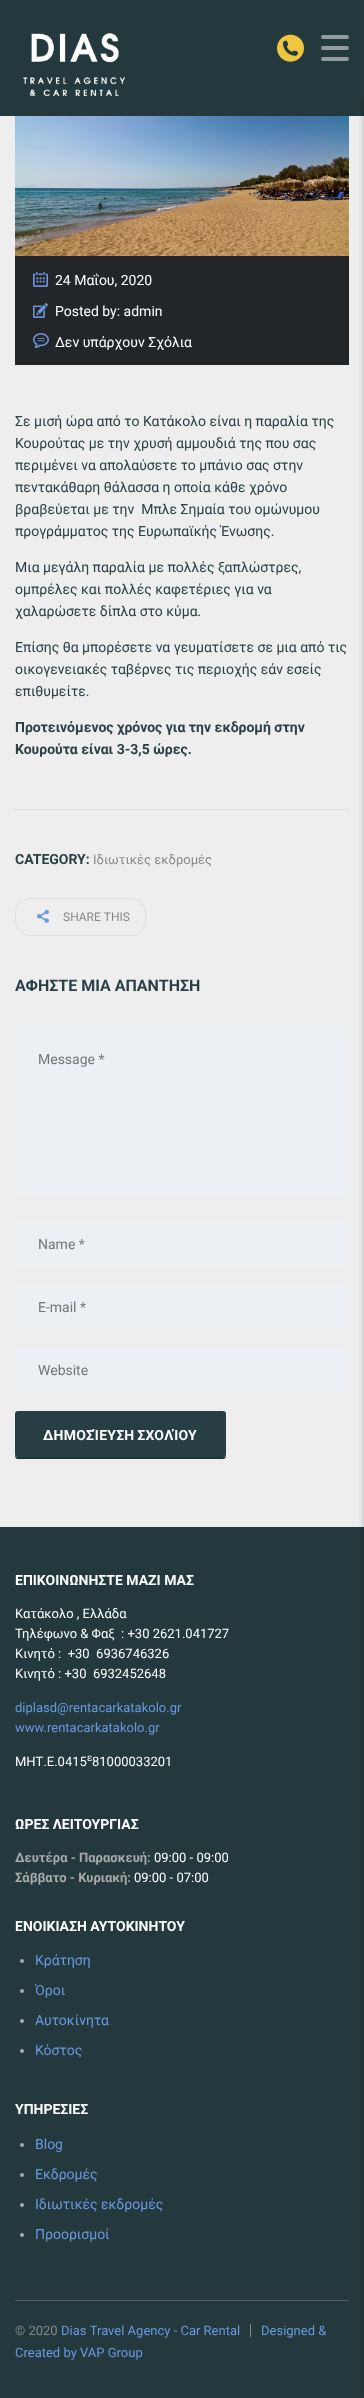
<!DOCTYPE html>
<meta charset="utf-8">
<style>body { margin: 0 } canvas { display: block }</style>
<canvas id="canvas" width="364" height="2398"></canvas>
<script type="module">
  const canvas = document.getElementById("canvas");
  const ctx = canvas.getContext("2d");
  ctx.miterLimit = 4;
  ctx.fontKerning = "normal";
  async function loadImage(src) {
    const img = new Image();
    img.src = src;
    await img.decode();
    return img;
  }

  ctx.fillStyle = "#23393d";
  ctx.fillRect(0, 0, 364, 2398);
  ctx.fillStyle = "#eeeeee";
  ctx.fillRect(0, 116, 364, 1411);
  ctx.drawImage(await loadImage("img1.png"), 23, 32, 103, 65);
  ctx.drawImage(await loadImage("img2.png"), 277, 34, 27, 28);
  ctx.fillStyle = "#919c9e";
  ctx.beginPath();
  ctx.roundRect(321, 35, 28, 4, 2);
  ctx.fill();
  ctx.beginPath();
  ctx.roundRect(321, 46, 28, 4, 2);
  ctx.fill();
  ctx.beginPath();
  ctx.roundRect(321, 57, 28, 4, 2);
  ctx.fill();
  ctx.fillStyle = "rgba(0, 0, 0, 0.2)";
  ctx.filter = "blur(2.5px)";
  ctx.beginPath();
  ctx.rect(363, 99, 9, 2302);
  ctx.fill();
  ctx.filter = "none";
  ctx.drawImage(await loadImage("img3.png"), 15, 116, 334, 140);
  ctx.fillStyle = "#232628";
  ctx.fillRect(15, 256, 334, 109);
  ctx.drawImage(await loadImage("img4.png"), 33, 272, 15, 15);
  ctx.font = "14px Roboto";
  ctx.fillStyle = "#ffffff";
  ctx.fillText("24 Μαΐου, 2020", 55, 285);
  ctx.drawImage(await loadImage("img5.png"), 33, 303, 15, 15);
  ctx.fillText("Posted by: admin", 55, 316);
  ctx.drawImage(await loadImage("img6.png"), 33, 333, 16, 15);
  ctx.fillText("Δεν υπάρχουν Σχόλια", 55, 347);
  ctx.fillStyle = "#dddddd";
  ctx.fillRect(15, 809, 334, 1);
  ctx.fillStyle = "#2a4045";
  ctx.fillText("Σε μισή ώρα από το Κατάκολο είναι η παραλία της", 15, 426);
  ctx.fillText("Κουρούτας με την χρυσή αμμουδιά της που σας", 15, 448);
  ctx.fillText("περιμένει να απολαύσετε το μπάνιο σας στην", 15, 470);
  ctx.fillText("πεντακάθαρη θάλασσα η οποία κάθε χρόνο", 15, 492);
  ctx.fillText("βραβεύεται με την  Μπλε Σημαία του ομώνυμου", 15, 514);
  ctx.fillText("προγράμματος της Ευρωπαϊκής Ένωσης.", 15, 536);
  ctx.fillText("Μια μεγάλη παραλία με πολλές ξαπλώστρες,", 15, 572);
  ctx.fillText("ομπρέλες και πολλές καφετέριες για να", 15, 594);
  ctx.fillText("χαλαρώσετε δίπλα στο κύμα.", 15, 616);
  ctx.fillText("Επίσης θα μπορέσετε να γευματίσετε σε μια από τις", 15, 652);
  ctx.fillText("οικογενειακές ταβέρνες τις περιοχής εάν εσείς", 15, 674);
  ctx.fillText("επιθυμείτε.", 15, 696);
  ctx.font = "bold 14px Roboto";
  ctx.fillText("Προτεινόμενος χρόνος για την εκδρομή στην", 15, 732);
  ctx.fillText("Κουρούτα είναι 3-3,5 ώρες.", 15, 754);
  ctx.fillText("CATEGORY:", 15, 864);
  ctx.font = "13px Roboto";
  ctx.fillStyle = "#888888";
  ctx.fillText("Ιδιωτικές εκδρομές", 93, 864);
  ctx.beginPath();
  ctx.roundRect(15.5, 898.5, 130, 37, 14.5);
  ctx.strokeStyle = "#dddddd";
  ctx.stroke();
  ctx.drawImage(await loadImage("img7.png"), 37, 909, 12, 14);
  ctx.font = "12px Roboto";
  ctx.fillText("SHARE THIS", 63, 921);
  ctx.font = "bold 16px Roboto";
  ctx.fillStyle = "#2a4045";
  ctx.fillText("ΑΦΗΣΤΕ ΜΙΑ ΑΠΑΝΤΗΣΗ", 15, 991);
  ctx.fillStyle = "#eceff3";
  ctx.fillRect(15, 1025, 334, 172);
  ctx.font = "14px Roboto";
  ctx.fillStyle = "#757575";
  ctx.fillText("Message *", 38, 1064);
  ctx.fillStyle = "#eceff3";
  ctx.fillRect(15, 1222, 334, 44);
  ctx.fillStyle = "#757575";
  ctx.fillText("Name *", 38, 1249);
  ctx.fillStyle = "#eceff3";
  ctx.fillRect(15, 1285, 334, 44);
  ctx.fillStyle = "#757575";
  ctx.fillText("E-mail *", 38, 1312);
  ctx.fillStyle = "#eceff3";
  ctx.fillRect(15, 1348, 334, 44);
  ctx.fillStyle = "#757575";
  ctx.fillText("Website", 38, 1375);
  ctx.fillStyle = "#1f3236";
  ctx.beginPath();
  ctx.moveTo(15, 1454);
  ctx.bezierCurveTo(15, 1456, 15, 1459, 18, 1459);
  ctx.lineTo(223, 1459);
  ctx.bezierCurveTo(226, 1459, 226, 1456, 226, 1454);
  ctx.bezierCurveTo(226, 1456, 225, 1457, 223, 1457);
  ctx.lineTo(18, 1457);
  ctx.bezierCurveTo(16, 1457, 15, 1456, 15, 1454);
  ctx.closePath();
  ctx.fill();
  ctx.fillStyle = "#273f44";
  ctx.beginPath();
  ctx.roundRect(15, 1411, 211, 46, 3);
  ctx.fill();
  ctx.letterSpacing = "0.25px";
  ctx.wordSpacing = "-1px";
  ctx.font = "bold 14px Roboto";
  ctx.fillStyle = "#ffffff";
  ctx.fillText("ΔΗΜΟΣΊΕΥΣΗ ΣΧΟΛΊΟΥ", 43, 1440);
  ctx.letterSpacing = "0px";
  ctx.wordSpacing = "0px";
  ctx.fillText("ΕΠΙΚΟΙΝΩΝΗΣΤΕ ΜΑΖΙ ΜΑΣ", 15, 1585);
  ctx.font = "13px Roboto";
  ctx.fillText("Κατάκολο , Ελλάδα", 15, 1618);
  ctx.fillText("Τηλέφωνο & Φαξ  : +30 2621.041727", 15, 1638);
  ctx.fillText("Κινητό :  +30  6936746326", 15, 1658);
  ctx.fillText("Κινητό : +30  6932452648", 15, 1678);
  ctx.fillStyle = "#6c98e1";
  ctx.fillText("diplasd@rentacarkatakolo.gr", 15, 1712);
  ctx.fillText("www.rentacarkatakolo.gr", 15, 1732);
  ctx.fillStyle = "#ffffff";
  ctx.fillText("ΜΗΤ.Ε.0415", 15, 1766);
  ctx.font = "10px Roboto";
  ctx.fillText("ε", 87, 1761);
  ctx.font = "13px Roboto";
  ctx.fillText("81000033201", 92, 1766);
  ctx.font = "bold 14px Roboto";
  ctx.fillText("ΩΡΕΣ ΛΕΙΤΟΥΡΓΙΑΣ", 15, 1829);
  ctx.font = "bold 13px Roboto";
  ctx.fillStyle = "#aaaaaa";
  ctx.fillText("Δευτέρα - Παρασκευή:", 15, 1862);
  ctx.font = "13px Roboto";
  ctx.fillStyle = "#ffffff";
  ctx.fillText("09:00 - 09:00", 154, 1862);
  ctx.font = "bold 13px Roboto";
  ctx.fillStyle = "#aaaaaa";
  ctx.fillText("Σάββατο - Κυριακή:", 15, 1882);
  ctx.font = "13px Roboto";
  ctx.fillStyle = "#ffffff";
  ctx.fillText("09:00 - 07:00", 134, 1882);
  ctx.font = "bold 14px Roboto";
  ctx.fillText("ΕΝΟΙΚΙΑΣΗ ΑΥΤΟΚΙΝΗΤΟΥ", 15, 1931);
  ctx.fillStyle = "#aaaaaa";
  ctx.beginPath();
  ctx.arc(22, 1961, 2, 0, Math.PI * 2);
  ctx.fill();
  ctx.font = "14px Roboto";
  ctx.fillStyle = "#6c98e1";
  ctx.fillText("Κράτηση", 35, 1965);
  ctx.fillStyle = "#aaaaaa";
  ctx.beginPath();
  ctx.arc(22, 1991, 2, 0, Math.PI * 2);
  ctx.fill();
  ctx.fillStyle = "#6c98e1";
  ctx.fillText("Όροι", 35, 1995);
  ctx.fillStyle = "#aaaaaa";
  ctx.beginPath();
  ctx.arc(22, 2021, 2, 0, Math.PI * 2);
  ctx.fill();
  ctx.fillStyle = "#6c98e1";
  ctx.fillText("Αυτοκίνητα", 35, 2025);
  ctx.fillStyle = "#aaaaaa";
  ctx.beginPath();
  ctx.arc(22, 2051, 2, 0, Math.PI * 2);
  ctx.fill();
  ctx.fillStyle = "#6c98e1";
  ctx.fillText("Κόστος", 35, 2055);
  ctx.font = "bold 14px Roboto";
  ctx.fillStyle = "#ffffff";
  ctx.fillText("ΥΠΗΡΕΣΙΕΣ", 15, 2114);
  ctx.fillStyle = "#aaaaaa";
  ctx.beginPath();
  ctx.arc(22, 2145, 2, 0, Math.PI * 2);
  ctx.fill();
  ctx.font = "14px Roboto";
  ctx.fillStyle = "#6c98e1";
  ctx.fillText("Blog", 35, 2149);
  ctx.fillStyle = "#aaaaaa";
  ctx.beginPath();
  ctx.arc(22, 2175, 2, 0, Math.PI * 2);
  ctx.fill();
  ctx.fillStyle = "#6c98e1";
  ctx.fillText("Εκδρομές", 35, 2179);
  ctx.fillStyle = "#aaaaaa";
  ctx.beginPath();
  ctx.arc(22, 2205, 2, 0, Math.PI * 2);
  ctx.fill();
  ctx.fillStyle = "#6c98e1";
  ctx.fillText("Ιδιωτικές εκδρομές", 35, 2209);
  ctx.fillStyle = "#aaaaaa";
  ctx.beginPath();
  ctx.arc(22, 2235, 2, 0, Math.PI * 2);
  ctx.fill();
  ctx.fillStyle = "#6c98e1";
  ctx.fillText("Προορισμοί", 35, 2239);
  ctx.fillStyle = "#4f6164";
  ctx.fillRect(15, 2300, 334, 1);
  ctx.font = "13px Roboto";
  ctx.fillStyle = "#888888";
  ctx.fillText("© 2020", 15, 2335);
  ctx.fillStyle = "#6c98e1";
  ctx.fillText("Dias Travel Agency - Car Rental", 61, 2335);
  ctx.fillStyle = "#888888";
  ctx.fillRect(250, 2324, 1, 13);
  ctx.fillStyle = "#6c98e1";
  ctx.fillText("Designed &", 261, 2335);
  ctx.fillText("Created by VAP Group", 15, 2357);
</script>
